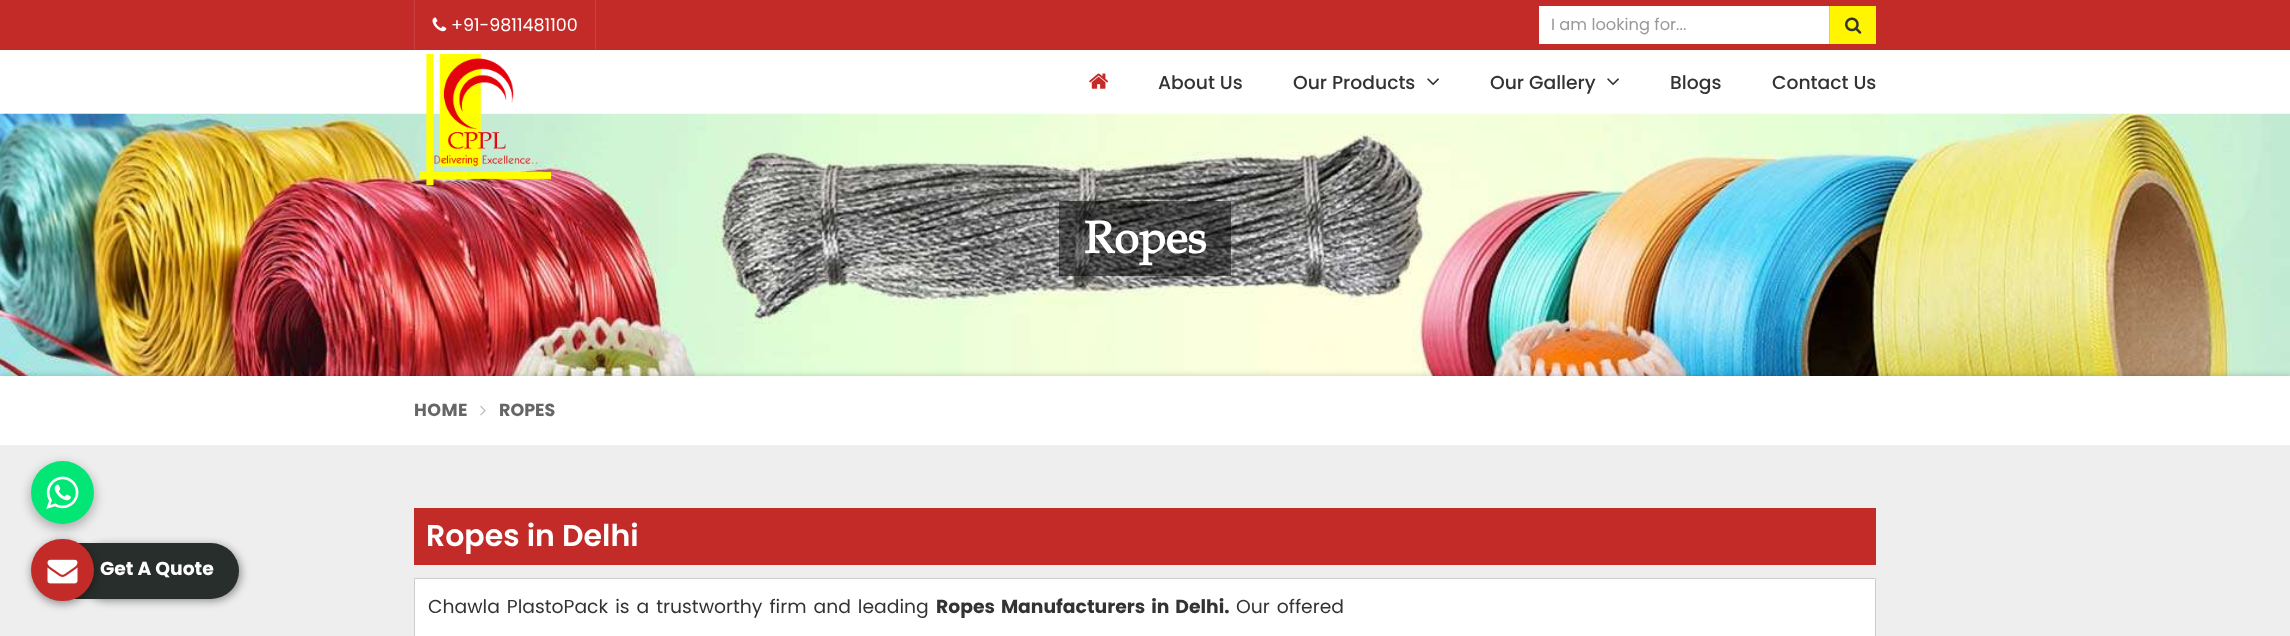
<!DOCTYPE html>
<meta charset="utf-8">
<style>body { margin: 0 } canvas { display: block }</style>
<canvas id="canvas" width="2290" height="636"></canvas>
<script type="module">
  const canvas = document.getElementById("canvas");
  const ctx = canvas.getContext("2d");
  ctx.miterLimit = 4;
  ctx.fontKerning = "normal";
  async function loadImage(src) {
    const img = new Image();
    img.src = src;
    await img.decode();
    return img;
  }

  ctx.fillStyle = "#ffffff";
  ctx.fillRect(0, 0, 2290, 636);
  ctx.drawImage(await loadImage("img7.png"), 0, 113, 2290, 263);
  ctx.fillStyle = "rgba(0, 0, 0, 0.2)";
  ctx.filter = "blur(3px)";
  ctx.beginPath();
  ctx.rect(0, 376, 2290, 69);
  ctx.fill();
  ctx.filter = "none";
  ctx.fillStyle = "#eeeeee";
  ctx.fillRect(0, 445, 2290, 191);
  ctx.fillStyle = "rgba(0, 0, 0, 0.16)";
  ctx.filter = "blur(6px)";
  ctx.beginPath();
  ctx.roundRect(31, 465, 63, 63, 31.5);
  ctx.fill();
  ctx.filter = "none";
  ctx.filter = "blur(6px)";
  ctx.beginPath();
  ctx.roundRect(31, 465, 63, 63, 31.5);
  ctx.fill();
  ctx.filter = "none";
  ctx.fillStyle = "#01e675";
  ctx.beginPath();
  ctx.arc(62.5, 492.5, 31.5, 0, Math.PI * 2);
  ctx.fill();
  ctx.drawImage(await loadImage("img1.png"), 46, 476, 33, 33);
  ctx.fillStyle = "#c32b28";
  ctx.fillRect(0, 0, 2290, 50);
  ctx.fillStyle = "#c9403e";
  ctx.fillRect(414, 0, 1, 50);
  ctx.drawImage(await loadImage("img2.png"), 432, 17, 15, 15);
  ctx.font = "17.5px Poppins";
  ctx.fillStyle = "#ffffff";
  ctx.fillText("+91-9811481100", 451, 31);
  ctx.fillStyle = "#c9403e";
  ctx.fillRect(595, 0, 1, 50);
  ctx.fillStyle = "#ffffff";
  ctx.fillRect(1539, 6, 290, 38);
  ctx.font = "16.25px Poppins";
  ctx.fillStyle = "#999999";
  ctx.fillText("I am looking for...", 1551, 30);
  ctx.fillStyle = "#fff500";
  ctx.fillRect(1830, 6, 46, 38);
  ctx.fillStyle = "#e6dd00";
  ctx.fillRect(1829, 6, 1, 38);
  ctx.drawImage(await loadImage("img3.png"), 1845, 17, 17, 17);
  ctx.drawImage(await loadImage("img4.png"), 420, 53, 132, 132);
  ctx.drawImage(await loadImage("img5.png"), 1089, 73, 20, 16);
  ctx.font = "500 18.75px Poppins";
  ctx.fillStyle = "#333333";
  ctx.fillText("About Us", 1158, 89);
  ctx.fillText("Our Products", 1293, 89);
  ctx.drawImage(await loadImage("img6.png"), 1427, 78, 12, 8);
  ctx.fillText("Our Gallery", 1490, 89);
  ctx.drawImage(await loadImage("img6.png"), 1607, 78, 12, 8);
  ctx.fillText("Blogs", 1670, 89);
  ctx.fillText("Contact Us", 1772, 89);
  ctx.fillStyle = "rgba(0, 0, 0, 0.5)";
  ctx.fillRect(1059, 201, 172, 75);
  ctx.font = "bold 45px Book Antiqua";
  ctx.fillStyle = "#ffffff";
  ctx.fillText("Ropes", 1084, 253);
  ctx.fillRect(0, 376, 2290, 69);
  ctx.letterSpacing = "0.5px";
  ctx.font = "bold 17.5px Poppins";
  ctx.fillStyle = "#666666";
  ctx.fillText("HOME", 414, 416);
  ctx.drawImage(await loadImage("img8.png"), 480, 405, 6, 11);
  ctx.letterSpacing = "0px";
  ctx.fillText("ROPES", 499, 416);
  ctx.fillStyle = "#c32b28";
  ctx.fillRect(414, 508, 1462, 57);
  ctx.font = "600 30px Poppins";
  ctx.fillStyle = "#ffffff";
  ctx.fillText("Ropes in Delhi", 426, 546);
  ctx.beginPath();
  ctx.rect(414.5, 578.5, 1461, 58);
  ctx.fill();
  ctx.strokeStyle = "#cccccc";
  ctx.stroke();
  ctx.wordSpacing = "2px";
  ctx.font = "18.75px Poppins";
  ctx.fillStyle = "#333333";
  ctx.fillText("Chawla PlastoPack is a trustworthy firm and leading", 428, 613);
  ctx.font = "bold 18.75px Poppins";
  ctx.fillText("Ropes Manufacturers in Delhi.", 936, 613);
  ctx.font = "18.75px Poppins";
  ctx.fillText("Our offered", 1236, 613);
  ctx.fillStyle = "rgba(0, 0, 0, 0.4)";
  ctx.filter = "blur(4px)";
  ctx.beginPath();
  ctx.roundRect(78, 545, 163, 56, 28);
  ctx.fill();
  ctx.filter = "none";
  ctx.fillStyle = "#282e2c";
  ctx.beginPath();
  ctx.roundRect(75, 543, 164, 56, [0, 28, 28, 0]);
  ctx.fill();
  ctx.fillStyle = "rgba(0, 0, 0, 0.4)";
  ctx.filter = "blur(4px)";
  ctx.beginPath();
  ctx.roundRect(31, 541, 63, 63, 31.5);
  ctx.fill();
  ctx.filter = "none";
  ctx.fillStyle = "#c32b28";
  ctx.beginPath();
  ctx.roundRect(31, 539, 63, 62, 31);
  ctx.fill();
  ctx.drawImage(await loadImage("img9.png"), 47, 559, 31, 25);
  ctx.wordSpacing = "0px";
  ctx.font = "bold 18.75px Poppins";
  ctx.fillStyle = "#ffffff";
  ctx.fillText("Get A Quote", 100, 575);
</script>
